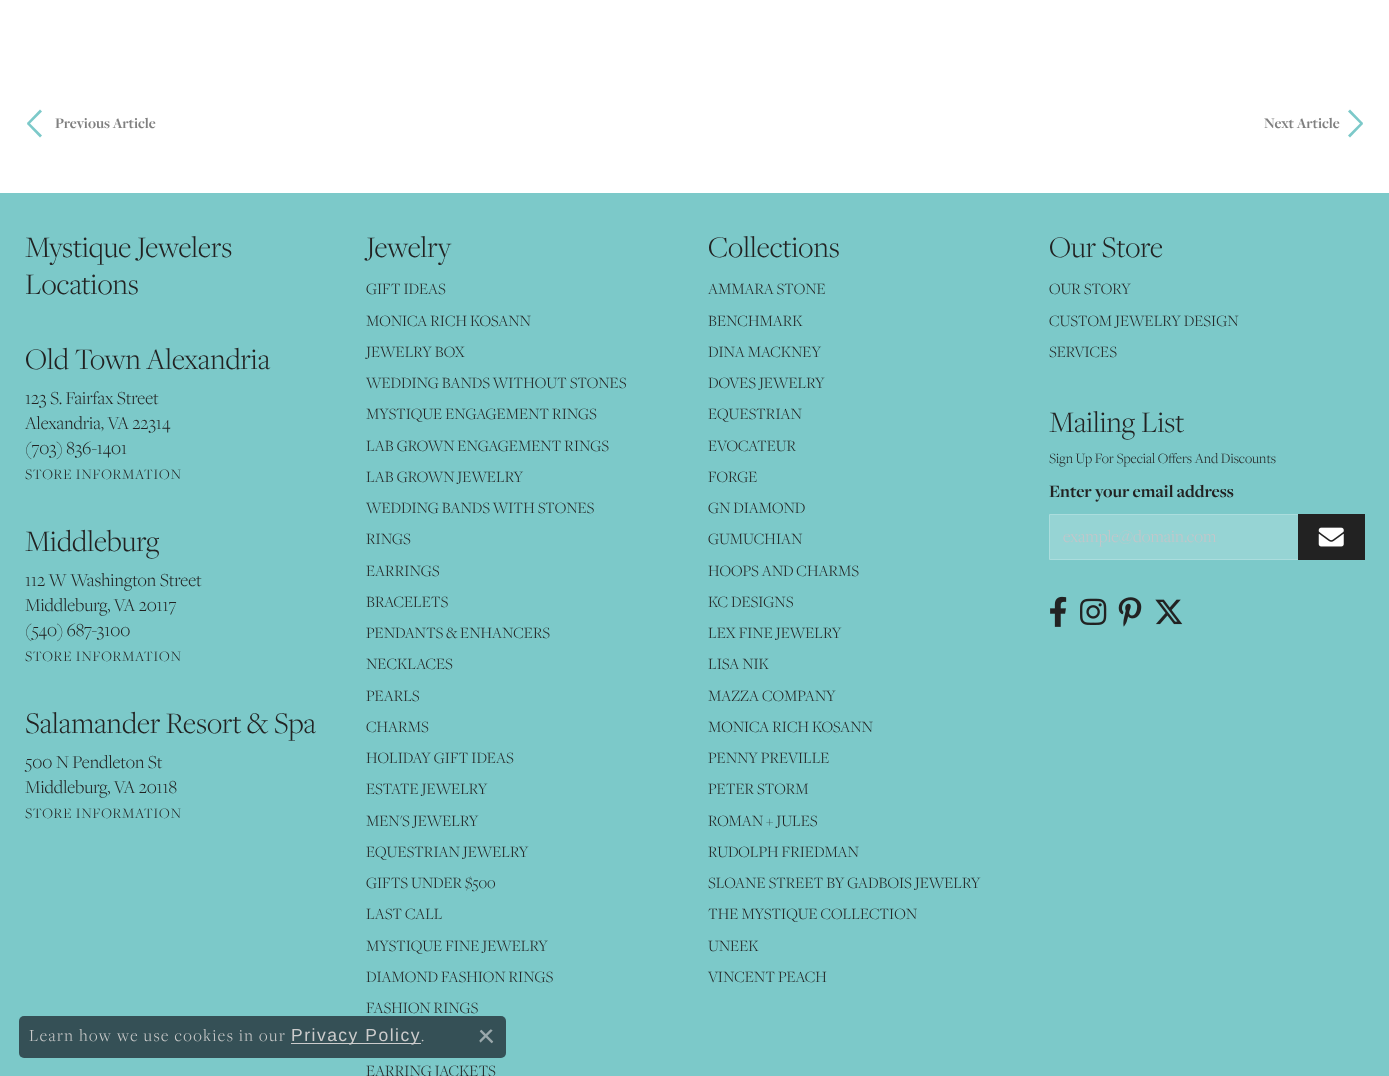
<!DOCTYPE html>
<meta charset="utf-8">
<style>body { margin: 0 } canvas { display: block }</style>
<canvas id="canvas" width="1389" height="1076"></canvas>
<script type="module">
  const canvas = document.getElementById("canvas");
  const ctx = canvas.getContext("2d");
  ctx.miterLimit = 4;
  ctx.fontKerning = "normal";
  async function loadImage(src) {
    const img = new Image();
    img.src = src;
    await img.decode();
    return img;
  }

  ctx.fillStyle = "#ffffff";
  ctx.fillRect(0, 0, 1389, 1076);
  ctx.fillStyle = "#7cc9c9";
  ctx.beginPath();
  ctx.moveTo(27, 123);
  ctx.lineTo(40, 109.5);
  ctx.lineTo(42, 111.5);
  ctx.lineTo(28.5, 125);
  ctx.closePath();
  ctx.fill();
  ctx.font = "bold 15.25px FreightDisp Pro";
  ctx.fillStyle = "#808080";
  ctx.fillText("Previous Article", 55, 128);
  ctx.fillStyle = "#7cc9c9";
  ctx.beginPath();
  ctx.moveTo(28.5, 122);
  ctx.lineTo(42, 135.5);
  ctx.lineTo(40, 137.5);
  ctx.lineTo(27, 124);
  ctx.closePath();
  ctx.fill();
  ctx.fillStyle = "#808080";
  ctx.fillText("Next Article", 1264, 128);
  ctx.fillStyle = "#7cc9c9";
  ctx.beginPath();
  ctx.moveTo(1350, 109.5);
  ctx.lineTo(1363, 123);
  ctx.lineTo(1361.5, 125);
  ctx.lineTo(1348, 111.5);
  ctx.closePath();
  ctx.fill();
  ctx.beginPath();
  ctx.moveTo(1348, 135.5);
  ctx.lineTo(1361.5, 122);
  ctx.lineTo(1363, 124);
  ctx.lineTo(1350, 137.5);
  ctx.closePath();
  ctx.fill();
  ctx.fillRect(0, 193, 1389, 883);
  ctx.font = "300 31px FreightDisp Pro";
  ctx.fillStyle = "#222222";
  ctx.fillText("Mystique Jewelers", 25, 257);
  ctx.fillText("Locations", 25, 294);
  ctx.fillText("Old Town Alexandria", 25, 369);
  ctx.font = "300 19px FreightDisp Pro";
  ctx.fillText("123 S. Fairfax Street", 25, 404);
  ctx.fillText("Alexandria, VA 22314", 25, 429);
  ctx.fillText("(703) 836-1401", 25, 454);
  ctx.letterSpacing = "0.75px";
  ctx.font = "300 15px FreightDisp Pro";
  ctx.fillText("STORE INFORMATION", 25, 479);
  ctx.letterSpacing = "0px";
  ctx.font = "300 31px FreightDisp Pro";
  ctx.fillText("Middleburg", 25, 551);
  ctx.font = "300 19px FreightDisp Pro";
  ctx.fillText("112 W Washington Street", 25, 586);
  ctx.fillText("Middleburg, VA 20117", 25, 611);
  ctx.fillText("(540) 687-3100", 25, 636);
  ctx.letterSpacing = "0.75px";
  ctx.font = "300 15px FreightDisp Pro";
  ctx.fillText("STORE INFORMATION", 25, 661);
  ctx.letterSpacing = "0px";
  ctx.font = "300 31px FreightDisp Pro";
  ctx.fillText("Salamander Resort & Spa", 25, 733);
  ctx.font = "300 19px FreightDisp Pro";
  ctx.fillText("500 N Pendleton St", 25, 768);
  ctx.fillText("Middleburg, VA 20118", 25, 793);
  ctx.letterSpacing = "0.75px";
  ctx.font = "300 15px FreightDisp Pro";
  ctx.fillText("STORE INFORMATION", 25, 818);
  ctx.letterSpacing = "0px";
  ctx.font = "300 31px FreightDisp Pro";
  ctx.fillText("Jewelry", 366, 257);
  ctx.font = "300 16.25px FreightDisp Pro";
  ctx.fillText("GIFT IDEAS", 366, 294);
  ctx.fillText("MONICA RICH KOSANN", 366, 326);
  ctx.fillText("JEWELRY BOX", 366, 357);
  ctx.fillText("WEDDING BANDS WITHOUT STONES", 366, 388);
  ctx.fillText("MYSTIQUE ENGAGEMENT RINGS", 366, 419);
  ctx.fillText("LAB GROWN ENGAGEMENT RINGS", 366, 451);
  ctx.fillText("LAB GROWN JEWELRY", 366, 482);
  ctx.fillText("WEDDING BANDS WITH STONES", 366, 513);
  ctx.fillText("RINGS", 366, 544);
  ctx.fillText("EARRINGS", 366, 576);
  ctx.fillText("BRACELETS", 366, 607);
  ctx.fillText("PENDANTS & ENHANCERS", 366, 638);
  ctx.fillText("NECKLACES", 366, 669);
  ctx.fillText("PEARLS", 366, 701);
  ctx.fillText("CHARMS", 366, 732);
  ctx.fillText("HOLIDAY GIFT IDEAS", 366, 763);
  ctx.fillText("ESTATE JEWELRY", 366, 794);
  ctx.fillText("MEN'S JEWELRY", 366, 826);
  ctx.fillText("EQUESTRIAN JEWELRY", 366, 857);
  ctx.fillText("GIFTS UNDER $500", 366, 888);
  ctx.fillText("LAST CALL", 366, 919);
  ctx.fillText("MYSTIQUE FINE JEWELRY", 366, 951);
  ctx.fillText("DIAMOND FASHION RINGS", 366, 982);
  ctx.fillText("FASHION RINGS", 366, 1013);
  ctx.fillText("EARRING JACKETS", 366, 1076);
  ctx.font = "300 31px FreightDisp Pro";
  ctx.fillText("Collections", 708, 257);
  ctx.font = "300 16.25px FreightDisp Pro";
  ctx.fillText("AMMARA STONE", 708, 294);
  ctx.fillText("BENCHMARK", 708, 326);
  ctx.fillText("DINA MACKNEY", 708, 357);
  ctx.fillText("DOVES JEWELRY", 708, 388);
  ctx.fillText("EQUESTRIAN", 708, 419);
  ctx.fillText("EVOCATEUR", 708, 451);
  ctx.fillText("FORGE", 708, 482);
  ctx.fillText("GN DIAMOND", 708, 513);
  ctx.fillText("GUMUCHIAN", 708, 544);
  ctx.fillText("HOOPS AND CHARMS", 708, 576);
  ctx.fillText("KC DESIGNS", 708, 607);
  ctx.fillText("LEX FINE JEWELRY", 708, 638);
  ctx.fillText("LISA NIK", 708, 669);
  ctx.fillText("MAZZA COMPANY", 708, 701);
  ctx.fillText("MONICA RICH KOSANN", 708, 732);
  ctx.fillText("PENNY PREVILLE", 708, 763);
  ctx.fillText("PETER STORM", 708, 794);
  ctx.fillText("ROMAN + JULES", 708, 826);
  ctx.fillText("RUDOLPH FRIEDMAN", 708, 857);
  ctx.fillText("SLOANE STREET BY GADBOIS JEWELRY", 708, 888);
  ctx.fillText("THE MYSTIQUE COLLECTION", 708, 919);
  ctx.fillText("UNEEK", 708, 951);
  ctx.fillText("VINCENT PEACH", 708, 982);
  ctx.font = "300 31px FreightDisp Pro";
  ctx.fillText("Our Store", 1049, 257);
  ctx.font = "300 16.25px FreightDisp Pro";
  ctx.fillText("OUR STORY", 1049, 294);
  ctx.fillText("CUSTOM JEWELRY DESIGN", 1049, 326);
  ctx.fillText("SERVICES", 1049, 357);
  ctx.font = "300 31px FreightDisp Pro";
  ctx.fillText("Mailing List", 1049, 432);
  ctx.font = "300 14.75px FreightDisp Pro";
  ctx.fillText("Sign Up For Special Offers And Discounts", 1049, 463);
  ctx.font = "bold 18px FreightDisp Pro";
  ctx.fillText("Enter your email address", 1049, 497);
  ctx.fillStyle = "#96d4d4";
  ctx.beginPath();
  ctx.rect(1049.5, 514.5, 249, 45);
  ctx.fill();
  ctx.strokeStyle = "#abdddd";
  ctx.stroke();
  ctx.font = "300 18px FreightDisp Pro";
  ctx.fillStyle = "#c6c5c9";
  ctx.fillText("example@domain.com", 1063, 542);
  ctx.fillStyle = "#222222";
  ctx.fillRect(1298, 514, 67, 46);
  ctx.drawImage(await loadImage("img1.png"), 1318, 527, 26, 20);
  ctx.drawImage(await loadImage("img2.png"), 1050, 596, 17, 31);
  ctx.drawImage(await loadImage("img3.png"), 1080, 598, 27, 27);
  ctx.drawImage(await loadImage("img4.png"), 1118, 597, 24, 30);
  ctx.drawImage(await loadImage("img5.png"), 1155, 599, 28, 26);
  ctx.fillStyle = "rgba(46, 66, 73, 0.9)";
  ctx.beginPath();
  ctx.roundRect(19, 1016, 487, 42, 5);
  ctx.fill();
  ctx.letterSpacing = "1.5px";
  ctx.font = "300 17.5px FreightDisp Pro";
  ctx.fillStyle = "#cccccc";
  ctx.fillText("Learn how we use cookies in our", 29, 1041);
  ctx.fillRect(291, 1043, 130, 1);
  ctx.font = "17.5px Liberation Sans";
  ctx.fillText("Privacy Policy", 291, 1041);
  ctx.font = "300 17.5px FreightDisp Pro";
  ctx.fillText(".", 421, 1041);
  ctx.drawImage(await loadImage("img6.png"), 479, 1029, 15, 15);
</script>
